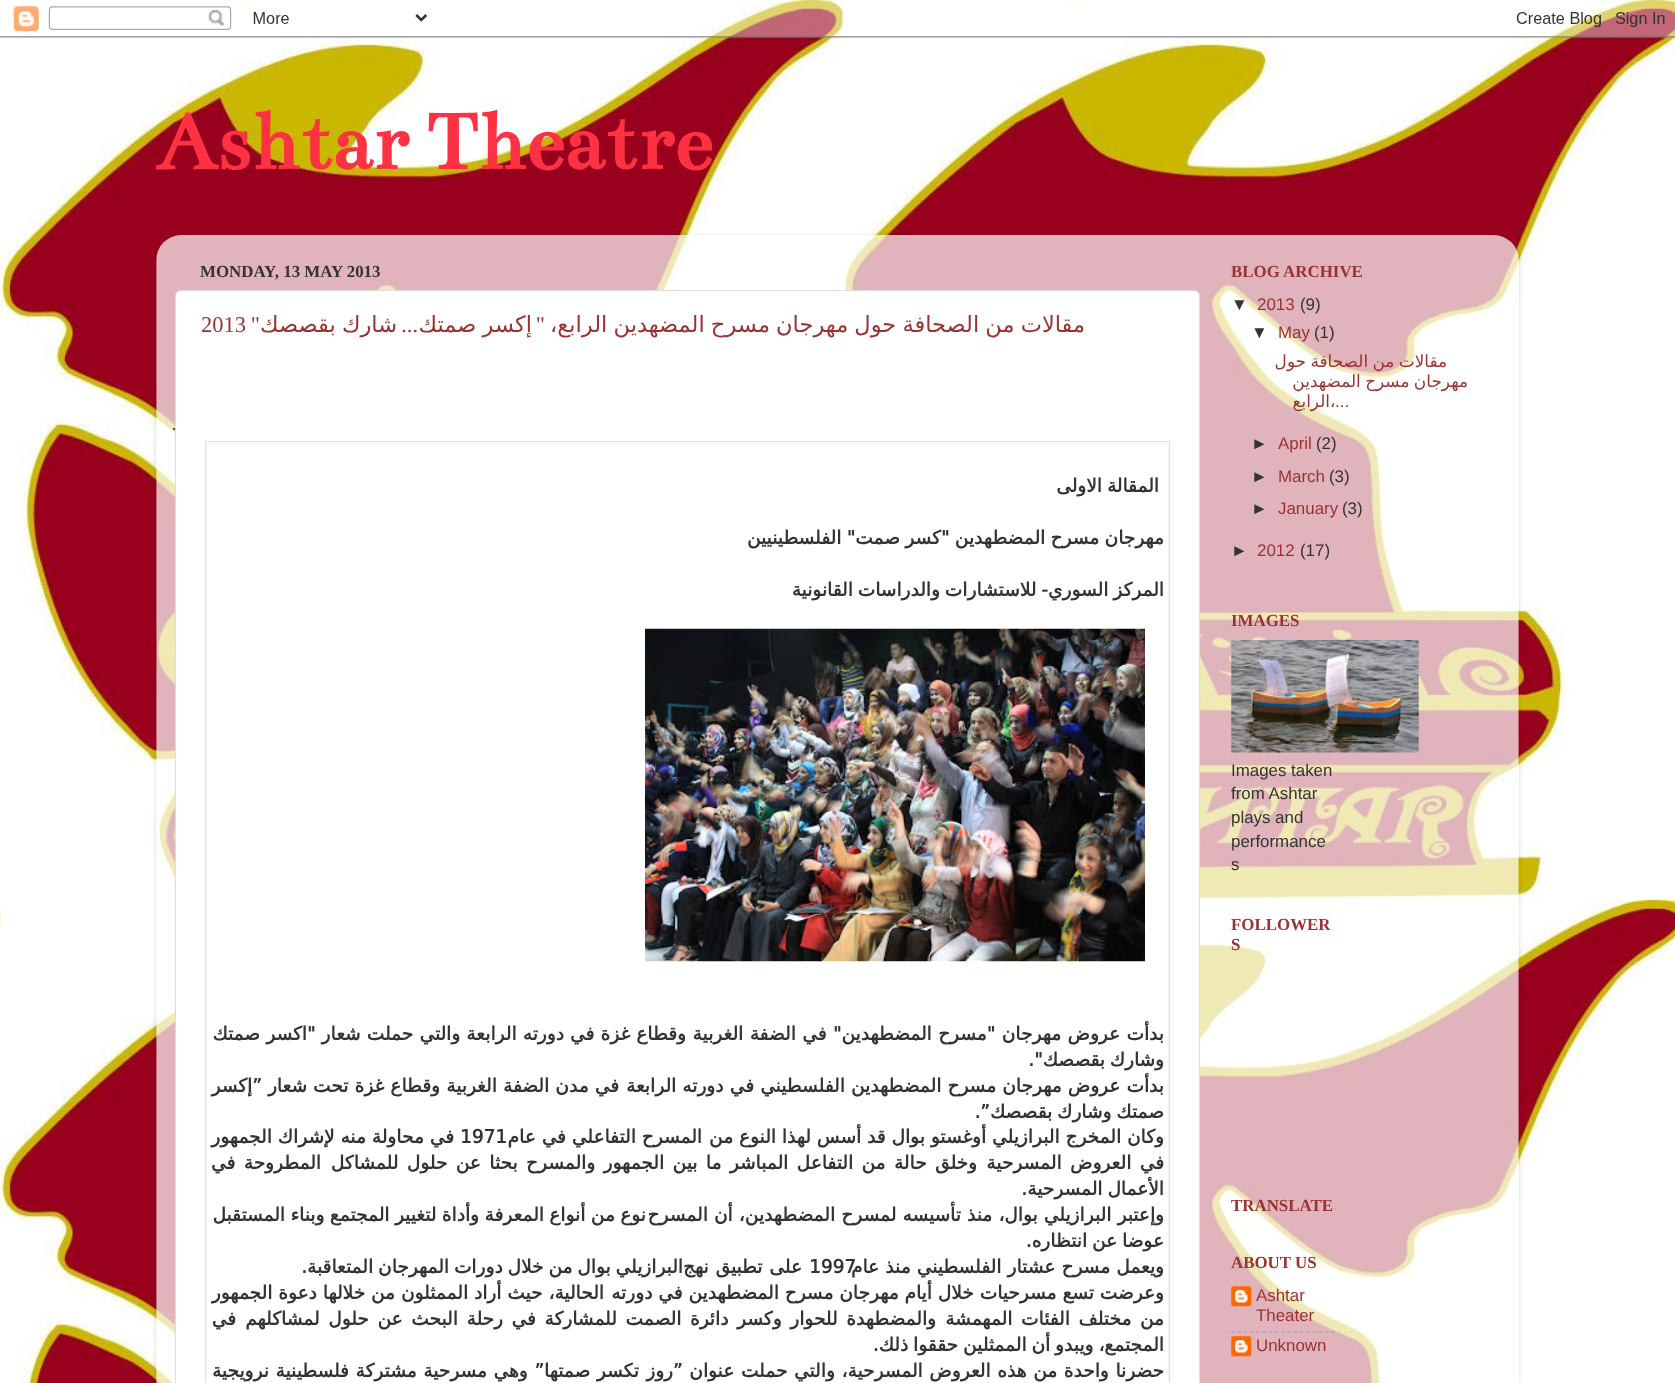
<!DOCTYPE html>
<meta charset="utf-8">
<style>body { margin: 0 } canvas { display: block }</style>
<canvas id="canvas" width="1675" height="1383"></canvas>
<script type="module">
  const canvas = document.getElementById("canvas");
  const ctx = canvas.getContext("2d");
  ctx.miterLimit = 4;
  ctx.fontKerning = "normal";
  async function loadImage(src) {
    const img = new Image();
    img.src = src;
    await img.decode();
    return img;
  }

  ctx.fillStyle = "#ffffff";
  ctx.fillRect(0, 0, 1675, 1383);
  ctx.drawImage(await loadImage("img1.png"), 0, 0, 1675, 1383);
  ctx.drawImage(await loadImage("img2.png"), 0, 0, 1675, 38);
  ctx.font = "bold 87.5px Bentham";
  ctx.fillStyle = "#ff3243";
  ctx.fillText("Ashtar Theatre", 156, 169);
  ctx.save();
  ctx.beginPath();
  ctx.moveTo(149, 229);
  ctx.lineTo(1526, 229);
  ctx.lineTo(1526, 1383);
  ctx.lineTo(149, 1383);
  ctx.closePath();
  ctx.moveTo(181, 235);
  ctx.lineTo(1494, 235);
  ctx.bezierCurveTo(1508, 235, 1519, 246, 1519, 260);
  ctx.lineTo(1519, 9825);
  ctx.lineTo(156, 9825);
  ctx.lineTo(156, 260);
  ctx.bezierCurveTo(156, 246, 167, 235, 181, 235);
  ctx.closePath();
  ctx.clip("evenodd");
  ctx.fillStyle = "rgba(0, 0, 0, 0.15)";
  ctx.filter = "blur(2px)";
  ctx.beginPath();
  ctx.roundRect(156, 236, 1363, 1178, 25);
  ctx.fill();
  ctx.filter = "none";
  ctx.restore();
  ctx.drawImage(await loadImage("img3.png"), 156, 235, 1363, 1148);
  ctx.font = "bold 16.9px Liberation Serif";
  ctx.fillStyle = "#993333";
  ctx.fillText("BLOG ARCHIVE", 1231, 277);
  ctx.font = "16.9px Liberation Sans";
  ctx.fillStyle = "#333333";
  ctx.fillText("(9)", 1300, 310);
  ctx.fillStyle = "#993333";
  ctx.fillText("2013", 1257, 310);
  ctx.fillStyle = "#333333";
  ctx.fillText("▼", 1231, 310);
  ctx.fillText("(1)", 1314, 338);
  ctx.fillStyle = "#993333";
  ctx.fillText("May", 1278, 338);
  ctx.fillStyle = "#333333";
  ctx.fillText("▼", 1251, 338);
  ctx.wordSpacing = "-1px";
  ctx.direction = "rtl";
  ctx.font = "16.9px DejaVu Sans";
  ctx.fillStyle = "#993333";
  ctx.fillText("مقالات من الصحافة حول", 1447, 367);
  ctx.fillText("مهرجان مسرح المضهدين", 1468, 387);
  ctx.wordSpacing = "0px";
  ctx.direction = "ltr";
  ctx.font = "16.9px Liberation Sans";
  ctx.fillText("...", 1335, 407);
  ctx.font = "16.9px DejaVu Sans";
  ctx.fillText("،", 1330, 407);
  ctx.direction = "rtl";
  ctx.fillText("الرابع", 1330, 407);
  ctx.direction = "ltr";
  ctx.font = "16.9px Liberation Sans";
  ctx.fillStyle = "#333333";
  ctx.fillText("(2)", 1316, 449);
  ctx.fillStyle = "#993333";
  ctx.fillText("April", 1278, 449);
  ctx.fillStyle = "#333333";
  ctx.fillText("►", 1251, 449);
  ctx.fillText("(3)", 1329, 482);
  ctx.fillStyle = "#993333";
  ctx.fillText("March", 1278, 482);
  ctx.fillStyle = "#333333";
  ctx.fillText("►", 1251, 482);
  ctx.fillText("(3)", 1342, 514);
  ctx.fillStyle = "#993333";
  ctx.fillText("January", 1278, 514);
  ctx.fillStyle = "#333333";
  ctx.fillText("►", 1251, 514);
  ctx.fillText("(17)", 1300, 556);
  ctx.fillStyle = "#993333";
  ctx.fillText("2012", 1257, 556);
  ctx.fillStyle = "#333333";
  ctx.fillText("►", 1231, 556);
  ctx.font = "bold 16.9px Liberation Serif";
  ctx.fillStyle = "#993333";
  ctx.fillText("IMAGES", 1231, 626);
  ctx.drawImage(await loadImage("img4.png"), 1231, 640, 188, 113);
  ctx.font = "16.9px Liberation Sans";
  ctx.fillStyle = "#333333";
  ctx.fillText("Images taken", 1231, 776);
  ctx.fillText("from Ashtar", 1231, 799);
  ctx.fillText("plays and", 1231, 823);
  ctx.fillText("performance", 1231, 847);
  ctx.fillText("s", 1231, 870);
  ctx.font = "bold 16.9px Liberation Serif";
  ctx.fillStyle = "#993333";
  ctx.fillText("FOLLOWER", 1231, 930);
  ctx.fillText("S", 1231, 950);
  ctx.fillText("TRANSLATE", 1231, 1211);
  ctx.fillText("ABOUT US", 1231, 1268);
  ctx.drawImage(await loadImage("img5.png"), 1231, 1286, 21, 21);
  ctx.font = "16.9px Liberation Sans";
  ctx.fillText("Ashtar", 1256, 1301);
  ctx.fillText("Theater", 1256, 1321);
  ctx.beginPath();
  ctx.moveTo(1231, 1332);
  ctx.lineTo(1335, 1332);
  ctx.strokeStyle = "rgba(128, 128, 128, 0.5)";
  ctx.lineWidth = 1.2;
  ctx.setLineDash([3.75, 2.5]);
  ctx.stroke();
  ctx.drawImage(await loadImage("img6.png"), 1231, 1336, 21, 21);
  ctx.fillText("Unknown", 1256, 1351);
  ctx.font = "bold 16.9px Liberation Serif";
  ctx.fillStyle = "#333333";
  ctx.fillText("MONDAY, 13 MAY 2013", 200, 277);
  ctx.fillStyle = "#ffffff";
  ctx.beginPath();
  ctx.roundRect(175.5, 290.5, 1024, 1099, 5.5);
  ctx.fill();
  ctx.strokeStyle = "#dddddd";
  ctx.lineWidth = 1;
  ctx.setLineDash([]);
  ctx.stroke();
  ctx.wordSpacing = "-1px";
  ctx.direction = "rtl";
  ctx.font = "22.5px DejaVu Sans";
  ctx.fillStyle = "#993333";
  ctx.fillText("مقالات من الصحافة حول مهرجان مسرح المضهدين الرابع،", 1085, 332);
  ctx.wordSpacing = "0px";
  ctx.font = "22.5px Liberation Serif";
  ctx.fillText("\"", 545, 332);
  ctx.wordSpacing = "-1px";
  ctx.font = "22.5px DejaVu Sans";
  ctx.fillText("إكسر صمتك", 532, 332);
  ctx.fillText("شارك بقصصك", 397, 332);
  ctx.wordSpacing = "0px";
  ctx.font = "22.5px Liberation Serif";
  ctx.fillText("\"", 260, 332);
  ctx.direction = "ltr";
  ctx.fillText("2013", 201, 332);
  ctx.direction = "rtl";
  ctx.fillText("...", 418, 332);
  ctx.direction = "ltr";
  ctx.font = "18.55px Liberation Sans";
  ctx.fillStyle = "#333333";
  ctx.fillText("·", 171, 434);
  ctx.strokeStyle = "#e1e1e1";
  ctx.strokeRect(205.5, 441.5, 964, 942);
  ctx.strokeStyle = "#f5f5f5";
  ctx.strokeRect(206.5, 443.5, 962, 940);
  ctx.wordSpacing = "-1px";
  ctx.direction = "rtl";
  ctx.font = "bold 18.55px DejaVu Sans";
  ctx.fillText("المقالة الاولى", 1159, 492);
  ctx.wordSpacing = "-0.5px";
  ctx.fillText("مهرجان مسرح المضطهدين \"كسر صمت\" الفلسطينيين", 1164, 544);
  ctx.wordSpacing = "-1px";
  ctx.fillText("المركز السوري- للاستشارات والدراسات القانونية", 1164, 596);
  ctx.drawImage(await loadImage("img7.png"), 645, 628, 500, 334);
  ctx.wordSpacing = "0.5px";
  ctx.fillText("بدأت عروض مهرجان \"مسرح المضطهدين\" في الضفة الغربية", 1164, 1040);
  ctx.wordSpacing = "0.25px";
  ctx.fillText("وقطاع غزة في دورته الرابعة والتي حملت شعار \"اكسر صمتك", 686, 1040);
  ctx.wordSpacing = "0px";
  ctx.fillText("وشارك", 1164, 1066);
  ctx.fillText("بقصصك\".", 1105, 1066);
  ctx.wordSpacing = "0.25px";
  ctx.fillText("بدأت عروض مهرجان مسرح المضطهدين الفلسطيني في دورته الرابعة", 1164, 1092);
  ctx.fillText("في مدن الضفة الغربية وقطاع غزة تحت شعار ”إكسر", 619, 1092);
  ctx.wordSpacing = "-1px";
  ctx.fillText("صمتك وشارك بقصصك”.", 1164, 1118);
  ctx.wordSpacing = "0px";
  ctx.fillText("وكان المخرج البرازيلي أوغستو بوال قد أسس لهذا النوع من", 1164, 1143);
  ctx.fillText("المسرح التفاعلي في عام", 702, 1143);
  ctx.direction = "ltr";
  ctx.fillText("1971", 460, 1143);
  ctx.direction = "rtl";
  ctx.fillText("في محاولة منه لإشراك الجمهور", 454, 1143);
  ctx.wordSpacing = "2.5px";
  ctx.fillText("في العروض المسرحية", 1164, 1169);
  ctx.fillText("وخلق حالة من التفاعل المباشر ما بين الجمهور والمسرح بحثا عن حلول للمشاكل", 977, 1169);
  ctx.fillText("المطروحة في", 321, 1169);
  ctx.wordSpacing = "-1px";
  ctx.fillText("الأعمال المسرحية.", 1164, 1195);
  ctx.wordSpacing = "0.25px";
  ctx.fillText("وإعتبر البرازيلي بوال، منذ تأسيسه لمسرح المضطهدين، أن المسرح", 1164, 1221);
  ctx.wordSpacing = "-0.5px";
  ctx.fillText("نوع من أنواع المعرفة وأداة لتغيير المجتمع وبناء المستقبل", 646, 1221);
  ctx.wordSpacing = "-1px";
  ctx.fillText("عوضا عن انتظاره.", 1164, 1247);
  ctx.wordSpacing = "0px";
  ctx.direction = "ltr";
  ctx.fillText("1997", 809, 1273);
  ctx.wordSpacing = "0.25px";
  ctx.direction = "rtl";
  ctx.fillText("ويعمل مسرح عشتار الفلسطيني منذ عام", 1164, 1273);
  ctx.wordSpacing = "1px";
  ctx.fillText("على تطبيق نهج", 802, 1273);
  ctx.wordSpacing = "-1px";
  ctx.fillText("البرازيلي بوال من خلال دورات المهرجان المتعاقبة.", 683, 1273);
  ctx.wordSpacing = "0px";
  ctx.fillText("وعرضت تسع مسرحيات خلال أيام مهرجان مسرح المضطهدين في دورته", 1164, 1299);
  ctx.fillText("الحالية، حيث أراد الممثلون من خلالها دعوة الجمهور", 604, 1299);
  ctx.wordSpacing = "2.75px";
  ctx.fillText("من مختلف الفئات المهمشة", 1164, 1325);
  ctx.fillText("والمضطهدة للحوار وكسر دائرة الصمت للمشاركة في رحلة البحث عن حلول لمشاكلهم", 936, 1325);
  ctx.wordSpacing = "0px";
  ctx.fillText("في", 236, 1325);
  ctx.wordSpacing = "-1px";
  ctx.fillText("المجتمع، ويبدو أن الممثلين حققوا ذلك.", 1164, 1351);
  ctx.wordSpacing = "0.75px";
  ctx.fillText("حضرنا واحدة من هذه العروض المسرحية، والتي حملت عنوان ”روز", 1164, 1377);
  ctx.fillText("تكسر صمتها” وهي مسرحية مشتركة فلسطينية نرويجية", 639, 1377);
</script>
